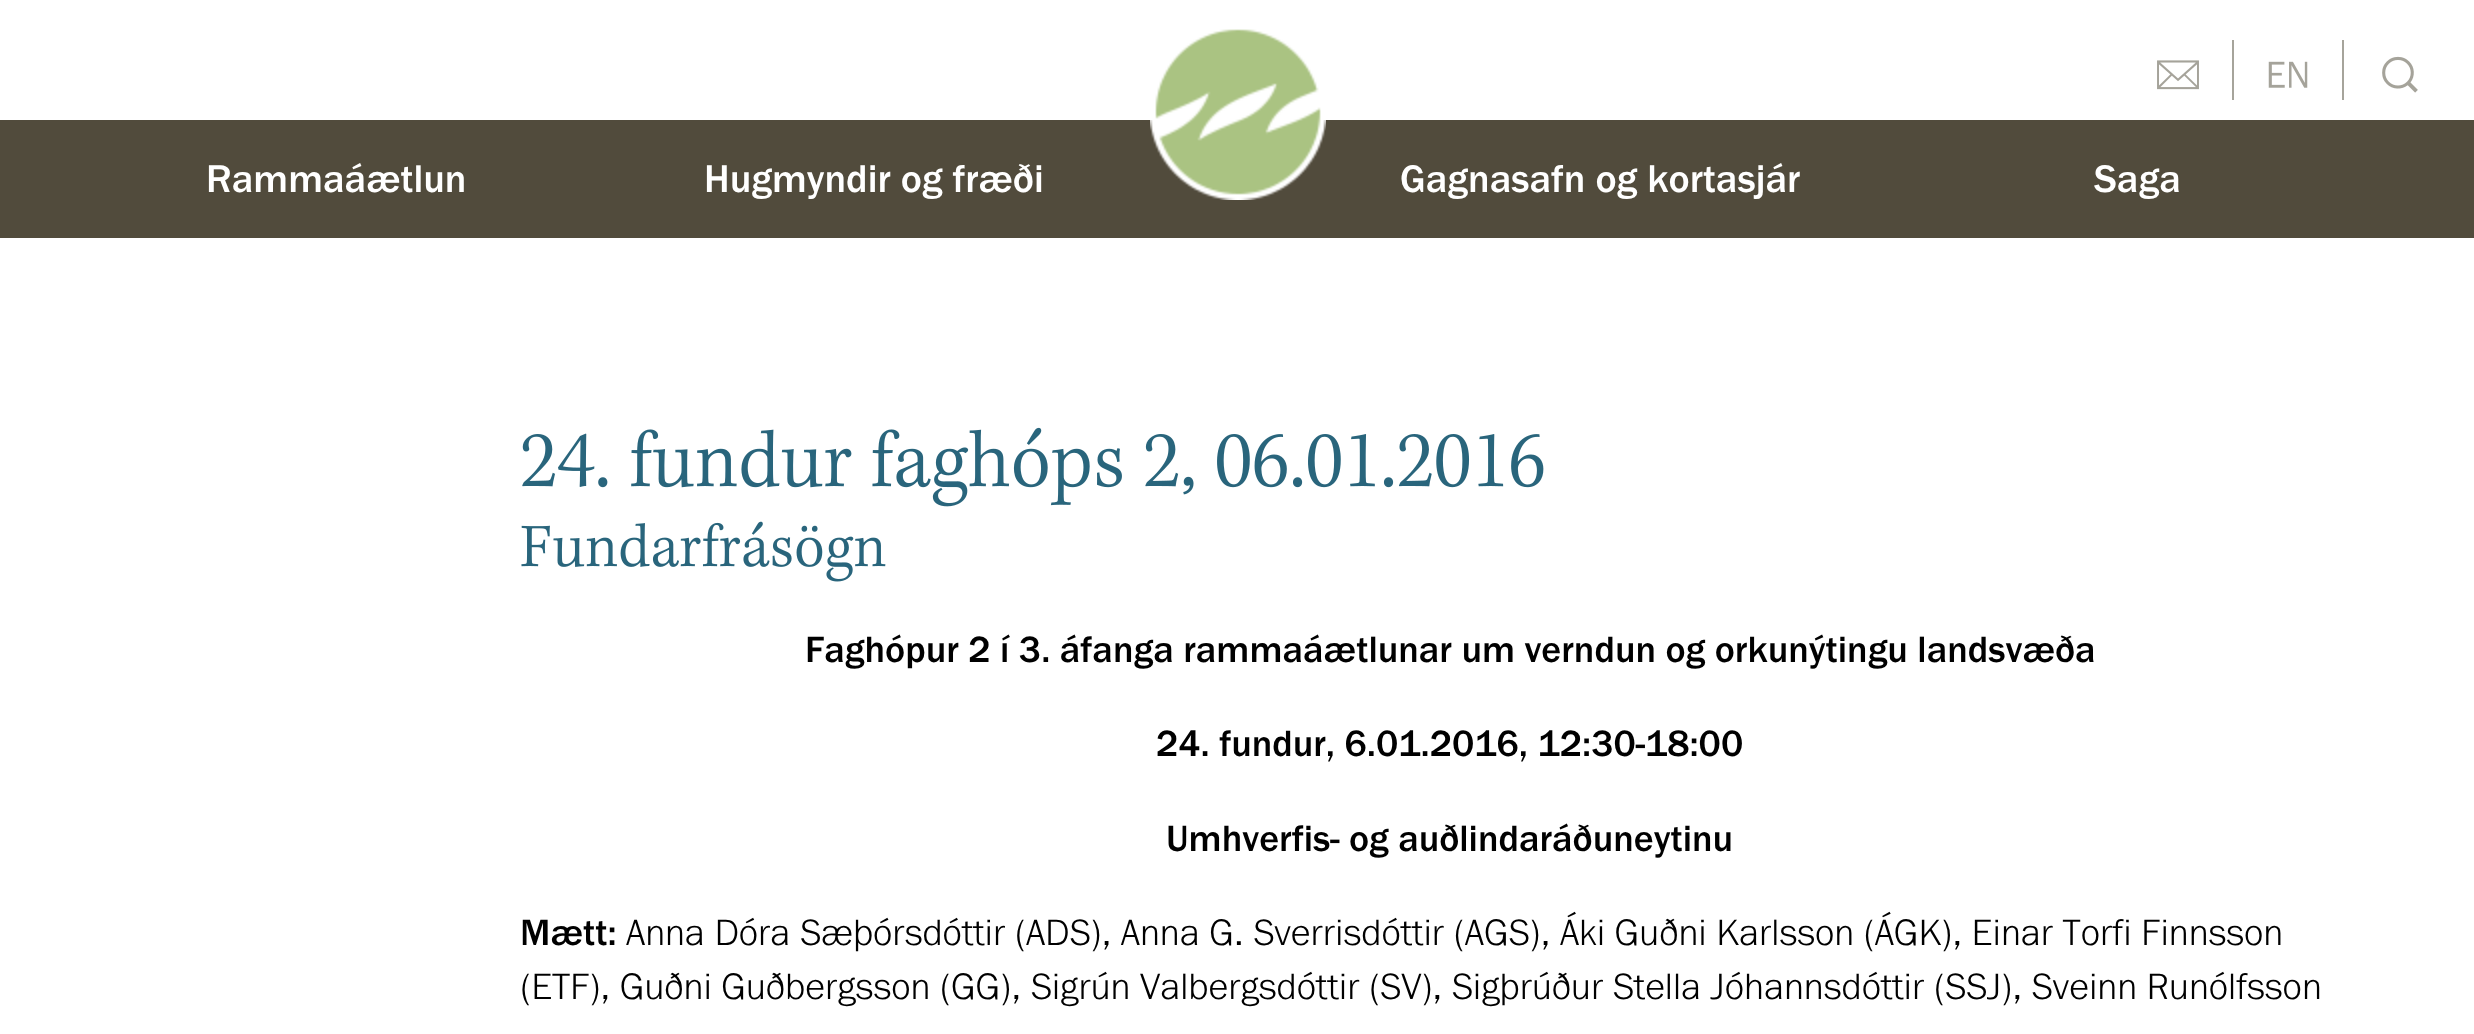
<!DOCTYPE html>
<meta charset="utf-8">
<style>body { margin: 0 } canvas { display: block }</style>
<canvas id="canvas" width="2474" height="1034"></canvas>
<script type="module">
  const canvas = document.getElementById("canvas");
  const ctx = canvas.getContext("2d");
  ctx.miterLimit = 4;
  ctx.fontKerning = "normal";
  async function loadImage(src) {
    const img = new Image();
    img.src = src;
    await img.decode();
    return img;
  }

  ctx.fillStyle = "#ffffff";
  ctx.fillRect(0, 0, 2474, 1034);
  ctx.fillStyle = "#514b3c";
  ctx.fillRect(0, 120, 2474, 118);
  ctx.drawImage(await loadImage("img1.png"), 1150, 29, 176, 171);
  ctx.drawImage(await loadImage("img2.png"), 2382, 56, 36, 37);
  ctx.drawImage(await loadImage("img3.png"), 2157, 60, 42, 30);
  ctx.fillStyle = "#a6a49b";
  ctx.fillRect(2342, 40, 2, 60);
  ctx.fillRect(2232, 40, 2, 60);
  ctx.drawImage(await loadImage("img4.png"), 2268, 61, 40, 27);
  ctx.font = "40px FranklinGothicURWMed";
  ctx.fillStyle = "#ffffff";
  ctx.fillText("Rammaáætlun", 206, 192);
  ctx.fillText("Hugmyndir og fræði", 704, 192);
  ctx.fillText("Gagnasafn og kortasjár", 1400, 192);
  ctx.fillText("Saga", 2094, 192);
  ctx.drawImage(await loadImage("img5.png"), 522, 427, 1022, 80);
  ctx.drawImage(await loadImage("img6.png"), 521, 521, 365, 61);
  ctx.font = "38px FranklinGothicURWMed";
  ctx.fillStyle = "#000000";
  ctx.fillText("Faghópur 2 í 3. áfanga rammaáætlunar um verndun og orkunýtingu landsvæða", 805, 662);
  ctx.fillText("24. fundur, 6.01.2016, 12:30-18:00", 1156, 756);
  ctx.fillText("Umhverfis- og auðlindaráðuneytinu", 1166, 851);
  ctx.fillText("Mætt:", 520, 945);
  ctx.font = "38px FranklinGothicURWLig";
  ctx.fillText("Anna Dóra Sæþórsdóttir (ADS), Anna G. Sverrisdóttir (AGS), Áki Guðni Karlsson (ÁGK), Einar Torfi Finnsson", 626, 945);
  ctx.fillText("(ETF), Guðni Guðbergsson (GG), Sigrún Valbergsdóttir (SV), Sigþrúður Stella Jóhannsdóttir (SSJ), Sveinn Runólfsson", 520, 999);
</script>
